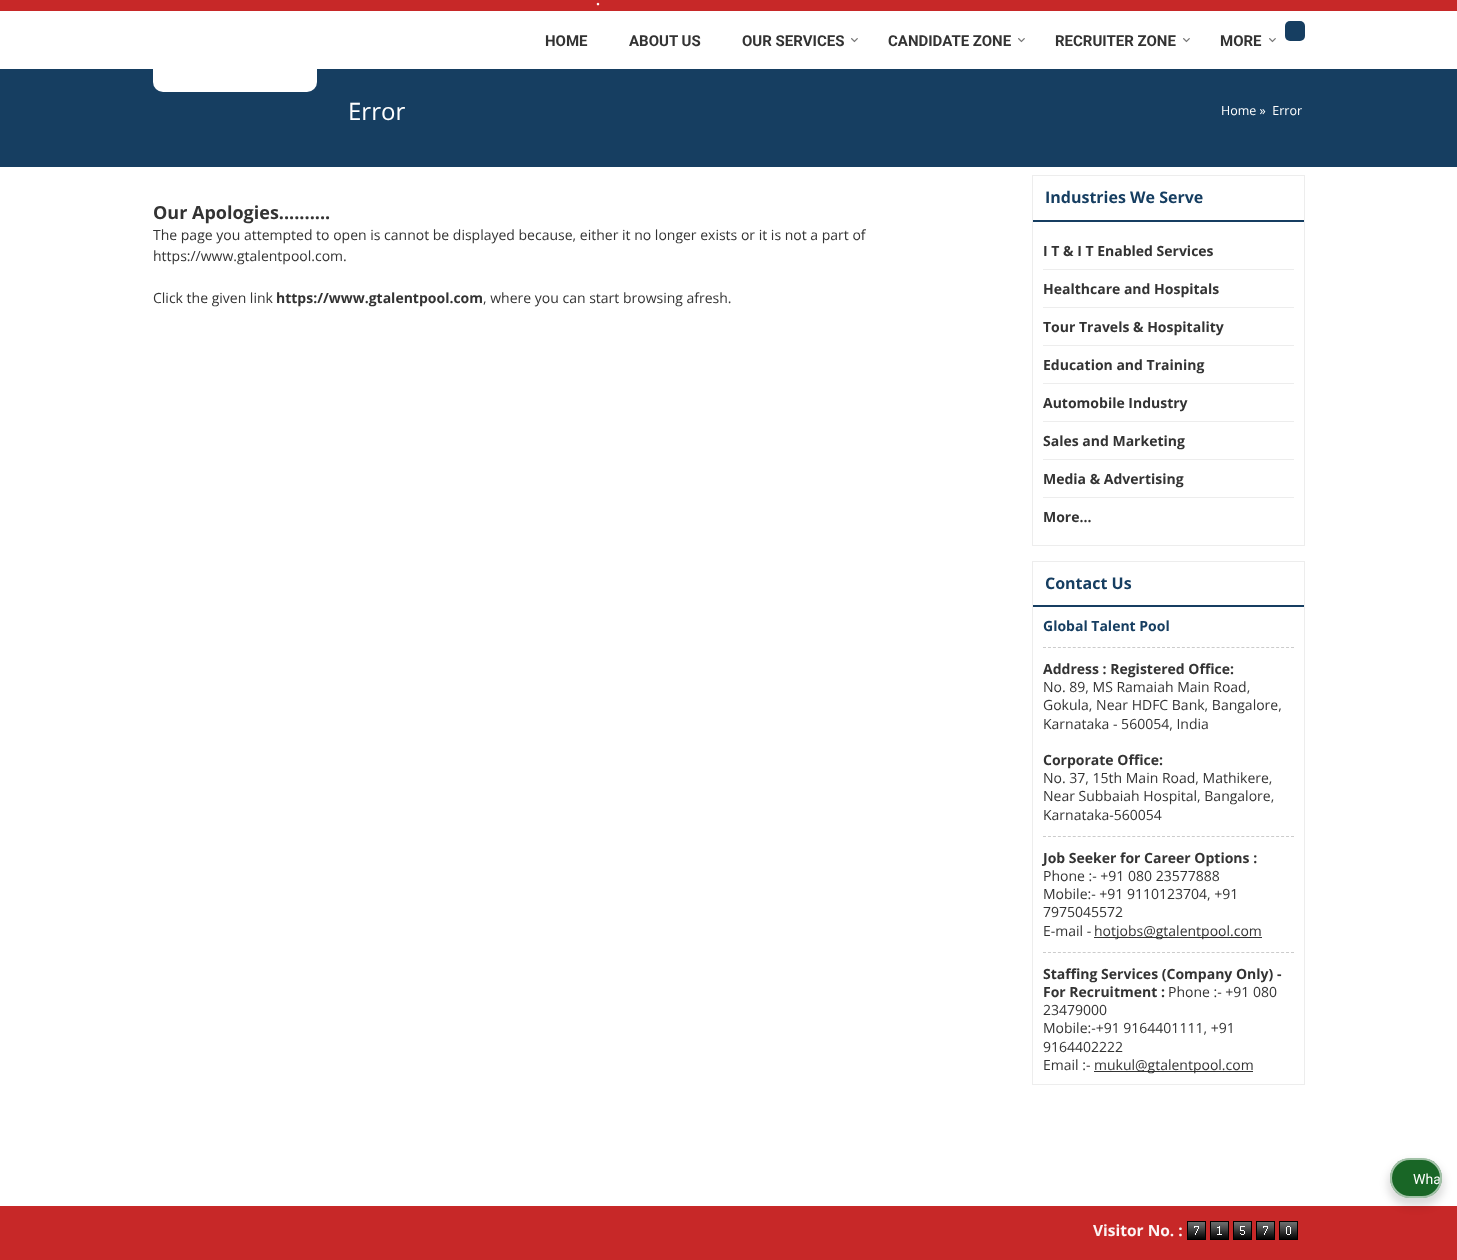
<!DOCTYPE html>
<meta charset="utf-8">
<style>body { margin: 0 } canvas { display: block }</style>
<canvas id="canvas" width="1457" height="1260"></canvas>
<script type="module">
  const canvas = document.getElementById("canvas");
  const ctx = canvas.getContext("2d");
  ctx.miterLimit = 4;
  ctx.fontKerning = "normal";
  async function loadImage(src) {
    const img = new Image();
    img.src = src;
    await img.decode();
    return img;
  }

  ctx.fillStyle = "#ffffff";
  ctx.fillRect(0, 0, 1457, 1260);
  ctx.fillStyle = "#c72828";
  ctx.fillRect(0, 0, 1457, 11);
  ctx.font = "bold 14px Open Sans";
  ctx.fillStyle = "#ffffff";
  ctx.fillText(".", 596, 5);
  ctx.fillStyle = "#163e61";
  ctx.fillRect(0, 69, 1457, 98);
  ctx.fillStyle = "#ffffff";
  ctx.beginPath();
  ctx.roundRect(153, 11, 164, 81, [0, 0, 10, 10]);
  ctx.fill();
  ctx.font = "bold 15px Roboto";
  ctx.fillStyle = "#333333";
  ctx.fillText("HOME", 545, 46);
  ctx.fillText("ABOUT US", 629, 46);
  ctx.fillText("OUR SERVICES", 742, 46);
  ctx.drawImage(await loadImage("img1.png"), 851, 38, 7, 5);
  ctx.fillText("CANDIDATE ZONE", 888, 46);
  ctx.drawImage(await loadImage("img1.png"), 1018, 38, 7, 5);
  ctx.fillText("RECRUITER ZONE", 1055, 46);
  ctx.drawImage(await loadImage("img1.png"), 1183, 38, 7, 5);
  ctx.fillText("MORE", 1220, 46);
  ctx.drawImage(await loadImage("img1.png"), 1269, 38, 7, 5);
  ctx.fillStyle = "#163e61";
  ctx.beginPath();
  ctx.roundRect(1285, 21, 20, 20, 5);
  ctx.fill();
  ctx.font = "24px Open Sans";
  ctx.fillStyle = "#ffffff";
  ctx.fillText("Error", 348, 120);
  ctx.font = "12.5px Open Sans";
  ctx.fillText("Home »  Error", 1221, 115);
  ctx.font = "bold 18px Open Sans";
  ctx.fillStyle = "#333333";
  ctx.fillText("Our Apologies..........", 153, 219);
  ctx.font = "14px Open Sans";
  ctx.fillText("The page you attempted to open is cannot be displayed because, either it no longer exists or it is not a part of", 153, 240);
  ctx.fillText("https://www.gtalentpool.com.", 153, 261);
  ctx.fillText("Click the given link", 153, 303);
  ctx.font = "bold 14px Open Sans";
  ctx.fillText("https://www.gtalentpool.com", 276, 303);
  ctx.font = "14px Open Sans";
  ctx.fillText(", where you can start browsing afresh.", 483, 303);
  ctx.strokeStyle = "#ededed";
  ctx.strokeRect(1032.5, 175.5, 272, 370);
  ctx.fillStyle = "#163e61";
  ctx.fillRect(1033, 220, 271, 2);
  ctx.font = "bold 16px Open Sans";
  ctx.fillText("Industries We Serve", 1045, 203);
  ctx.fillStyle = "#ededed";
  ctx.fillRect(1043, 269, 251, 1);
  ctx.font = "bold 14px Open Sans";
  ctx.fillStyle = "#333333";
  ctx.fillText("I T & I T Enabled Services", 1043, 256);
  ctx.fillStyle = "#ededed";
  ctx.fillRect(1043, 307, 251, 1);
  ctx.fillStyle = "#333333";
  ctx.fillText("Healthcare and Hospitals", 1043, 294);
  ctx.fillStyle = "#ededed";
  ctx.fillRect(1043, 345, 251, 1);
  ctx.fillStyle = "#333333";
  ctx.fillText("Tour Travels & Hospitality", 1043, 332);
  ctx.fillStyle = "#ededed";
  ctx.fillRect(1043, 383, 251, 1);
  ctx.fillStyle = "#333333";
  ctx.fillText("Education and Training", 1043, 370);
  ctx.fillStyle = "#ededed";
  ctx.fillRect(1043, 421, 251, 1);
  ctx.fillStyle = "#333333";
  ctx.fillText("Automobile Industry", 1043, 408);
  ctx.fillStyle = "#ededed";
  ctx.fillRect(1043, 459, 251, 1);
  ctx.fillStyle = "#333333";
  ctx.fillText("Sales and Marketing", 1043, 446);
  ctx.fillStyle = "#ededed";
  ctx.fillRect(1043, 497, 251, 1);
  ctx.fillStyle = "#333333";
  ctx.fillText("Media & Advertising", 1043, 484);
  ctx.fillText("More...", 1043, 522);
  ctx.strokeRect(1032.5, 561.5, 272, 523);
  ctx.fillStyle = "#163e61";
  ctx.fillRect(1033, 605, 271, 2);
  ctx.font = "bold 16px Open Sans";
  ctx.fillText("Contact Us", 1045, 589);
  ctx.font = "bold 14px Open Sans";
  ctx.fillText("Global Talent Pool", 1043, 631);
  ctx.beginPath();
  ctx.moveTo(1043, 647.5);
  ctx.lineTo(1294, 647.5);
  ctx.strokeStyle = "#cccccc";
  ctx.setLineDash([3, 1.96]);
  ctx.stroke();
  ctx.fillStyle = "#333333";
  ctx.fillText("Address : Registered Office:", 1043, 674);
  ctx.font = "14px Open Sans";
  ctx.fillText("No. 89, MS Ramaiah Main Road,", 1043, 692);
  ctx.fillText("Gokula, Near HDFC Bank, Bangalore,", 1043, 710);
  ctx.fillText("Karnataka - 560054, India", 1043, 729);
  ctx.font = "bold 14px Open Sans";
  ctx.fillText("Corporate Office:", 1043, 765);
  ctx.font = "14px Open Sans";
  ctx.fillText("No. 37, 15th Main Road, Mathikere,", 1043, 783);
  ctx.fillText("Near Subbaiah Hospital, Bangalore,", 1043, 801);
  ctx.fillText("Karnataka-560054", 1043, 820);
  ctx.beginPath();
  ctx.moveTo(1043, 836.5);
  ctx.lineTo(1294, 836.5);
  ctx.stroke();
  ctx.font = "bold 14px Open Sans";
  ctx.fillText("Job Seeker for Career Options :", 1043, 863);
  ctx.font = "14px Open Sans";
  ctx.fillText("Phone :- +91 080 23577888", 1043, 881);
  ctx.fillText("Mobile:- +91 9110123704, +91", 1043, 899);
  ctx.fillText("7975045572", 1043, 917);
  ctx.fillText("E-mail -", 1043, 936);
  ctx.fillRect(1094, 937, 168, 1);
  ctx.fillText("hotjobs@gtalentpool.com", 1094, 936);
  ctx.beginPath();
  ctx.moveTo(1043, 952.5);
  ctx.lineTo(1294, 952.5);
  ctx.stroke();
  ctx.font = "bold 14px Open Sans";
  ctx.fillText("Staffing Services (Company Only) -", 1043, 979);
  ctx.fillText("For Recruitment :", 1043, 997);
  ctx.font = "14px Open Sans";
  ctx.fillText("Phone :- +91 080", 1168, 997);
  ctx.fillText("23479000", 1043, 1015);
  ctx.fillText("Mobile:-+91 9164401111, +91", 1043, 1033);
  ctx.fillText("9164402222", 1043, 1052);
  ctx.fillText("Email :-", 1043, 1070);
  ctx.fillRect(1094, 1071, 159, 1);
  ctx.fillText("mukul@gtalentpool.com", 1094, 1070);
  ctx.fillStyle = "#c72828";
  ctx.fillRect(0, 1206, 1457, 54);
  ctx.font = "bold 15.5px Open Sans";
  ctx.fillStyle = "#fcf4f4";
  ctx.fillText("Visitor No. :", 1093, 1236);
  ctx.drawImage(await loadImage("img2.png"), 1187, 1221, 19, 19);
  ctx.drawImage(await loadImage("img3.png"), 1210, 1221, 19, 19);
  ctx.drawImage(await loadImage("img4.png"), 1233, 1221, 19, 19);
  ctx.drawImage(await loadImage("img2.png"), 1256, 1221, 19, 19);
  ctx.drawImage(await loadImage("img5.png"), 1279, 1221, 19, 19);
  ctx.fillStyle = "rgba(0, 0, 0, 0.14)";
  ctx.filter = "blur(4px)";
  ctx.beginPath();
  ctx.roundRect(1388, 1162, 56, 44, 22);
  ctx.fill();
  ctx.filter = "none";
  ctx.fillStyle = "#196626";
  ctx.beginPath();
  ctx.roundRect(1390, 1158, 52, 40, 20);
  ctx.fill();
  ctx.beginPath();
  ctx.roundRect(1391, 1159, 50, 38, 19);
  ctx.strokeStyle = "rgba(255, 255, 255, 0.6)";
  ctx.lineWidth = 2;
  ctx.setLineDash([]);
  ctx.stroke();
  ctx.save();
  ctx.beginPath();
  ctx.roundRect(1392, 1160, 48, 36, 18);
  ctx.clip();
  ctx.font = "14px Roboto";
  ctx.fillStyle = "#ffffff";
  ctx.fillText("Wha", 1413, 1184);
  ctx.restore();
</script>
